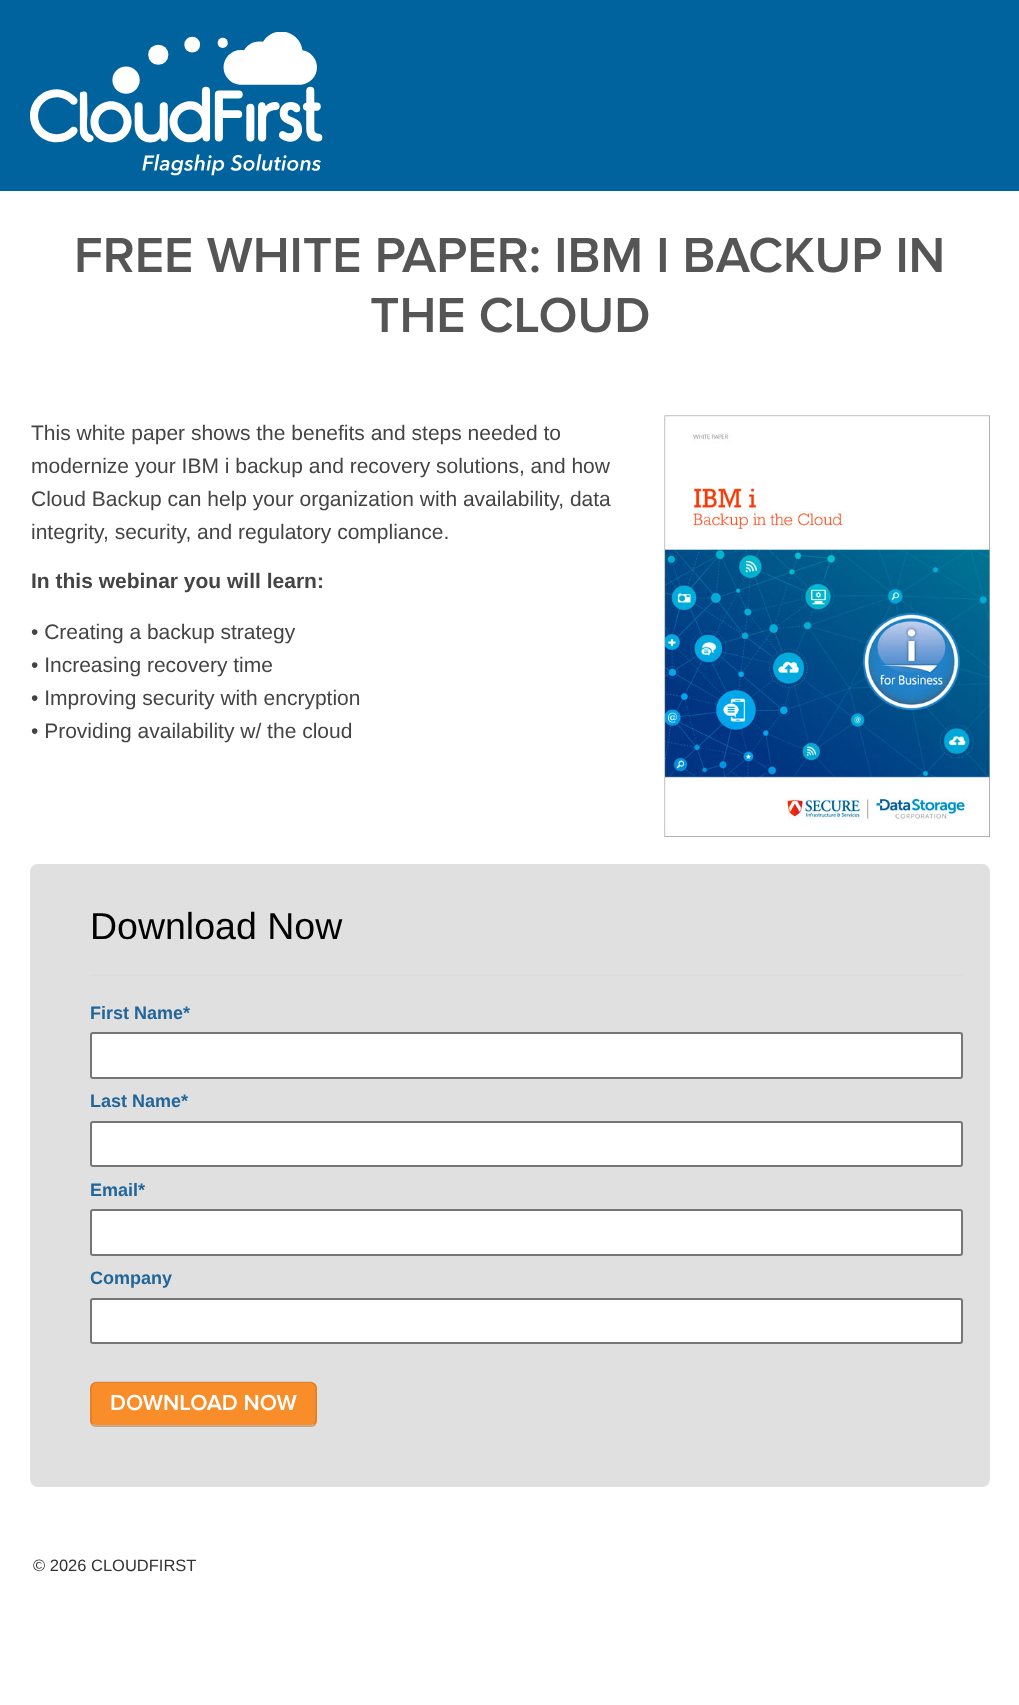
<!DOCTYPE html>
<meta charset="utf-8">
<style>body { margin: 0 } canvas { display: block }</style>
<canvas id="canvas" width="1019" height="1705"></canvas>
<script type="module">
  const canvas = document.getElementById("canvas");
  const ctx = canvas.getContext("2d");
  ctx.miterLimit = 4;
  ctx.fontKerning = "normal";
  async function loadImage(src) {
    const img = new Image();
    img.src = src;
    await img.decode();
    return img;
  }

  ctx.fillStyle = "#ffffff";
  ctx.fillRect(0, 0, 1019, 1705);
  ctx.fillStyle = "#00639e";
  ctx.fillRect(0, 0, 1019, 191);
  ctx.drawImage(await loadImage("img1.png"), 30, 32, 293, 144);
  ctx.font = "600 51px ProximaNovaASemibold";
  ctx.fillStyle = "#555555";
  ctx.fillText("FREE WHITE PAPER: IBM I BACKUP IN", 74, 272);
  ctx.fillText("THE CLOUD", 370, 332);
  ctx.font = "21px Liberation Sans";
  ctx.fillStyle = "#444444";
  ctx.fillText("This white paper shows the benefits and steps needed to", 31, 440);
  ctx.fillText("modernize your IBM i backup and recovery solutions, and how", 31, 473);
  ctx.fillText("Cloud Backup can help your organization with availability, data", 31, 506);
  ctx.fillText("integrity, security, and regulatory compliance.", 31, 539);
  ctx.drawImage(await loadImage("img2.png"), 664, 415, 326, 422);
  ctx.font = "bold 21px Liberation Sans";
  ctx.fillText("In this webinar you will learn:", 31, 588);
  ctx.font = "21px Liberation Sans";
  ctx.fillText("• Creating a backup strategy", 31, 639);
  ctx.fillText("• Increasing recovery time", 31, 672);
  ctx.fillText("• Improving security with encryption", 31, 705);
  ctx.fillText("• Providing availability w/ the cloud", 31, 738);
  ctx.fillStyle = "#e0e0e0";
  ctx.beginPath();
  ctx.roundRect(30, 864, 960, 623, 8);
  ctx.fill();
  ctx.fillStyle = "#dddddd";
  ctx.fillRect(90, 974, 873, 2);
  ctx.font = "37.5px Liberation Sans";
  ctx.fillStyle = "#000000";
  ctx.fillText("Download Now", 90, 939);
  ctx.font = "bold 18px Liberation Sans";
  ctx.fillStyle = "#226699";
  ctx.fillText("First Name*", 90, 1019);
  ctx.fillStyle = "#ffffff";
  ctx.beginPath();
  ctx.roundRect(91, 1033, 871, 45, 2);
  ctx.fill();
  ctx.strokeStyle = "#767676";
  ctx.lineWidth = 2;
  ctx.stroke();
  ctx.fillStyle = "#226699";
  ctx.fillText("Last Name*", 90, 1107);
  ctx.fillStyle = "#ffffff";
  ctx.beginPath();
  ctx.roundRect(91, 1122, 871, 44, 2);
  ctx.fill();
  ctx.stroke();
  ctx.fillStyle = "#226699";
  ctx.fillText("Email*", 90, 1196);
  ctx.fillStyle = "#ffffff";
  ctx.beginPath();
  ctx.roundRect(91, 1210, 871, 45, 2);
  ctx.fill();
  ctx.stroke();
  ctx.fillStyle = "#226699";
  ctx.fillText("Company", 90, 1284);
  ctx.fillStyle = "#ffffff";
  ctx.beginPath();
  ctx.roundRect(91, 1299, 871, 44, 2);
  ctx.fill();
  ctx.stroke();
  ctx.fillStyle = "#f98d29";
  ctx.beginPath();
  ctx.roundRect(90, 1382, 227, 45, 6);
  ctx.fill();
  ctx.beginPath();
  ctx.moveTo(314, 1424);
  ctx.bezierCurveTo(313, 1425, 312, 1426, 310.5, 1426);
  ctx.lineTo(96, 1426);
  ctx.bezierCurveTo(94.5, 1426, 93.5, 1425, 92.5, 1424);
  ctx.strokeStyle = "#b3b3b3";
  ctx.lineWidth = 1.5;
  ctx.stroke();
  ctx.beginPath();
  ctx.moveTo(92.5, 1424);
  ctx.bezierCurveTo(91.5, 1423, 91, 1422, 91, 1420.5);
  ctx.lineTo(91, 1387.5);
  ctx.bezierCurveTo(91, 1386, 91.5, 1385, 92.5, 1384);
  ctx.bezierCurveTo(93.5, 1383, 94.5, 1382, 96, 1382);
  ctx.lineTo(310.5, 1382);
  ctx.bezierCurveTo(312, 1382, 313, 1383, 314, 1384);
  ctx.bezierCurveTo(315, 1385, 316, 1386, 316, 1387.5);
  ctx.lineTo(316, 1420.5);
  ctx.bezierCurveTo(316, 1422, 315, 1423, 314, 1424);
  ctx.strokeStyle = "rgba(0, 0, 0, 0.1)";
  ctx.stroke();
  ctx.font = "600 22.5px ProximaNovaASemibold";
  ctx.fillStyle = "#ffffff";
  ctx.fillText("DOWNLOAD NOW", 110, 1410);
  ctx.font = "16.5px Liberation Sans";
  ctx.fillStyle = "#333333";
  ctx.fillText("© 2026 CLOUDFIRST", 33, 1571);
</script>
